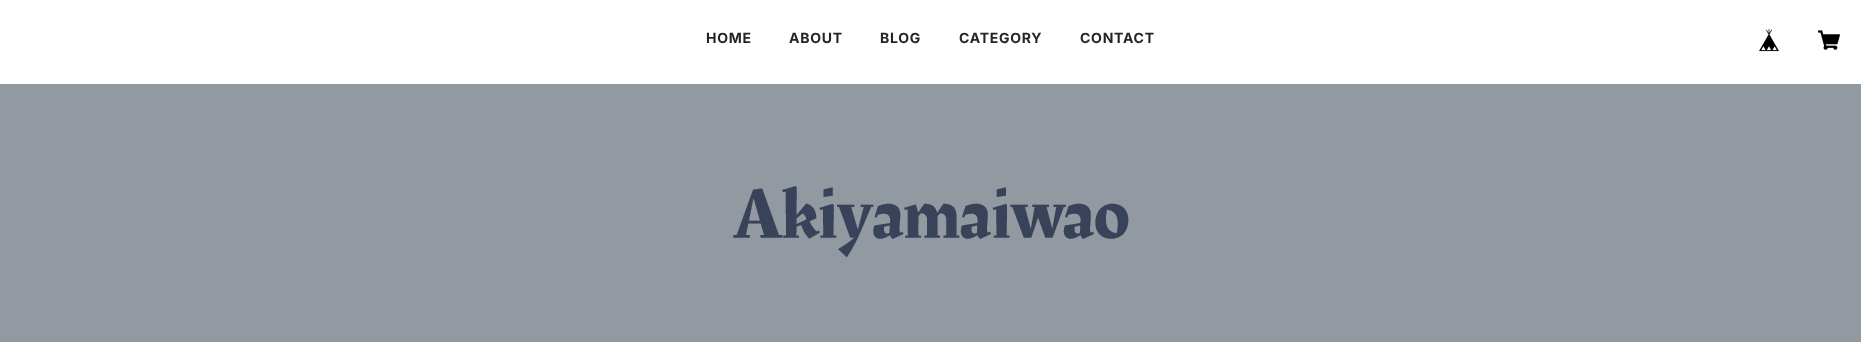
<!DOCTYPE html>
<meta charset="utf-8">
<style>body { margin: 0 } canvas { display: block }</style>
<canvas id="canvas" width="1861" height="342"></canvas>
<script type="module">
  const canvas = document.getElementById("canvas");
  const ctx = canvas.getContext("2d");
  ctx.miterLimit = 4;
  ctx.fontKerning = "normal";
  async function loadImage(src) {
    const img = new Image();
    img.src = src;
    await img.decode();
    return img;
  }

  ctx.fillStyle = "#9399a0";
  ctx.fillRect(0, 0, 1861, 342);
  ctx.fillStyle = "#ffffff";
  ctx.fillRect(0, 0, 1861, 84);
  ctx.letterSpacing = "0.75px";
  ctx.font = "bold 14px Inter";
  ctx.fillStyle = "#252525";
  ctx.fillText("HOME", 706, 43);
  ctx.fillText("ABOUT", 789, 43);
  ctx.fillText("BLOG", 880, 43);
  ctx.fillText("CATEGORY", 959, 43);
  ctx.fillText("CONTACT", 1080, 43);
  ctx.drawImage(await loadImage("img1.png"), 733, 186, 396, 72);
  ctx.drawImage(await loadImage("img2.png"), 1759, 29, 20, 23);
  ctx.drawImage(await loadImage("img3.png"), 1818, 30, 22, 20);
</script>
